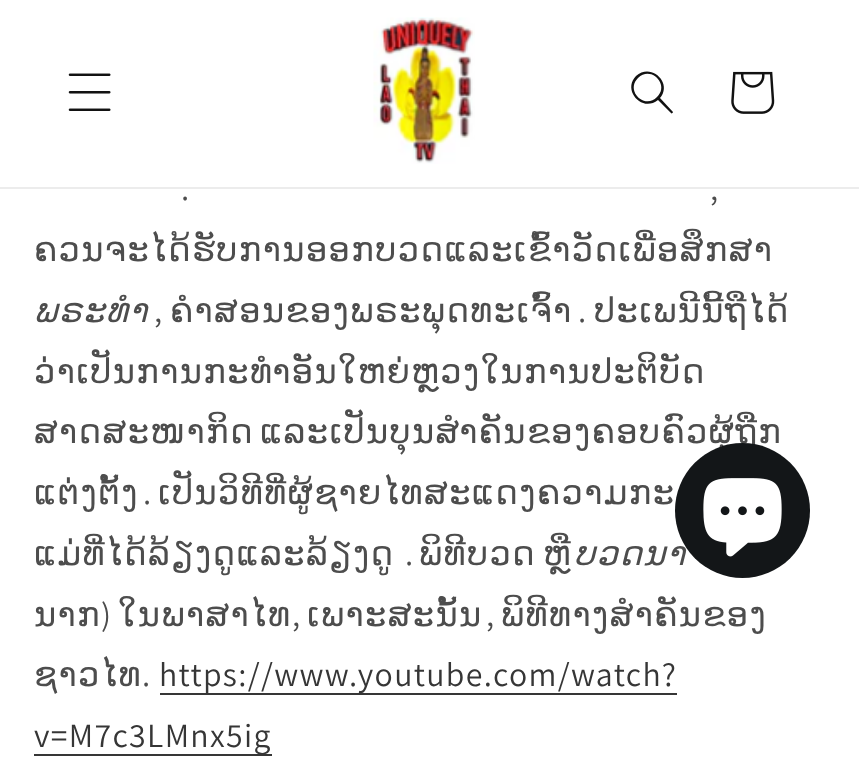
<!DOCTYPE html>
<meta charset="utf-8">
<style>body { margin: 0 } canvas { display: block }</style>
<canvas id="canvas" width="859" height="768"></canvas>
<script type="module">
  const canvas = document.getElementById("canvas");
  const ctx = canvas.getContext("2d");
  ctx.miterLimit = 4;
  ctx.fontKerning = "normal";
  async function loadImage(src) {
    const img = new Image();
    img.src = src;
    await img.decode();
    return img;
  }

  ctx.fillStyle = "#ffffff";
  ctx.fillRect(0, 0, 859, 768);
  ctx.fillStyle = "#ececec";
  ctx.fillRect(0, 187, 859, 2);
  ctx.drawImage(await loadImage("img1.png"), 68, 73, 43, 38);
  ctx.drawImage(await loadImage("img2.png"), 373, 17, 102, 147);
  ctx.fillStyle = "#121212";
  ctx.beginPath();
  ctx.moveTo(657, 97);
  ctx.bezierCurveTo(645, 110, 625, 91, 638, 78);
  ctx.bezierCurveTo(651, 65, 670, 85, 657, 97);
  ctx.moveTo(658, 100);
  ctx.bezierCurveTo(642, 113, 622, 90, 636, 76);
  ctx.bezierCurveTo(651, 62, 673, 83, 660, 98);
  ctx.lineTo(673, 112);
  ctx.bezierCurveTo(673, 113, 671, 114, 671, 113);
  ctx.closePath();
  ctx.fill("evenodd");
  ctx.drawImage(await loadImage("img3.png"), 731, 71, 44, 43);
  ctx.letterSpacing = "1.35px";
  ctx.font = "33.75px Assistant";
  ctx.fillStyle = "#4d4d4d";
  ctx.fillText(".", 181, 200);
  ctx.fillText(",", 710, 200);
  ctx.font = "33.75px DejaVu Sans";
  ctx.fillText("ຄວນຈະໄດ້ຮັບການອອກບວດແລະເຂົ້າວັດເພື່ອສຶກສາ", 34, 261);
  ctx.font = "italic 33.75px DejaVu Sans";
  ctx.fillText("ພຣະທໍາ", 34, 322);
  ctx.font = "33.75px Assistant";
  ctx.fillText(",", 154, 322);
  ctx.font = "33.75px DejaVu Sans";
  ctx.fillText("ຄໍາສອນຂອງພຣະພຸດທະເຈົ້າ", 170, 322);
  ctx.fillText("ປະເພນີນີ້ຖືໄດ້", 594, 322);
  ctx.font = "33.75px Assistant";
  ctx.fillText(".", 578, 322);
  ctx.font = "33.75px DejaVu Sans";
  ctx.fillText("ວ່າເປັນການກະທຳອັນໃຫຍ່ຫຼວງໃນການປະຕິບັດ", 34, 383);
  ctx.wordSpacing = "-6px";
  ctx.fillText("ສາດສະໜາກິດ ແລະເປັນບຸນສຳຄັນຂອງຄອບຄົວຜູ້ຖືກ", 34, 443);
  ctx.wordSpacing = "0px";
  ctx.fillText("ແຕ່ງຕັ້ງ", 34, 504);
  ctx.font = "33.75px Assistant";
  ctx.fillText(".", 143, 504);
  ctx.font = "33.75px DejaVu Sans";
  ctx.fillText("ເປັນວິທີທີ່ຜູ້ຊາຍໄທສະແດງຄວາມກະ", 158, 504);
  ctx.fillText("ແມ່ທີ່ໄດ້ລ້ຽງດູແລະລ້ຽງດູ", 34, 565);
  ctx.font = "33.75px Assistant";
  ctx.fillText(".", 405, 565);
  ctx.font = "33.75px DejaVu Sans";
  ctx.fillText("ພິທີບວດ", 419, 565);
  ctx.fillText("ຫຼື", 543, 565);
  ctx.font = "italic 33.75px DejaVu Sans";
  ctx.fillText("ບວດນາ", 574, 565);
  ctx.font = "33.75px DejaVu Sans";
  ctx.fillText("ນາກ", 34, 626);
  ctx.font = "33.75px Assistant";
  ctx.fillText(")", 101, 626);
  ctx.font = "33.75px DejaVu Sans";
  ctx.fillText("ໃນພາສາໄທ", 118, 626);
  ctx.font = "33.75px Assistant";
  ctx.fillText(",", 292, 626);
  ctx.font = "33.75px DejaVu Sans";
  ctx.fillText("ເພາະສະນັ້ນ", 307, 626);
  ctx.font = "33.75px Assistant";
  ctx.fillText(",", 486, 626);
  ctx.font = "33.75px DejaVu Sans";
  ctx.fillText("ພິທີທາງສໍາຄັນຂອງ", 501, 626);
  ctx.fillText("ຊາວໄທ", 34, 686);
  ctx.font = "33.75px Assistant";
  ctx.fillText(".", 142, 686);
  ctx.fillStyle = "#363636";
  ctx.fillRect(160, 693, 517, 2);
  ctx.fillText("https://www.youtube.com/watch?", 159, 686);
  ctx.fillRect(34, 754, 238, 2);
  ctx.fillText("v=M7c3LMnx5ig", 34, 747);
  ctx.fillStyle = "#131618";
  ctx.beginPath();
  ctx.arc(742.5, 510.5, 67.5, 0, Math.PI * 2);
  ctx.fill();
  ctx.drawImage(await loadImage("img4.png"), 703, 478, 79, 79);
</script>
